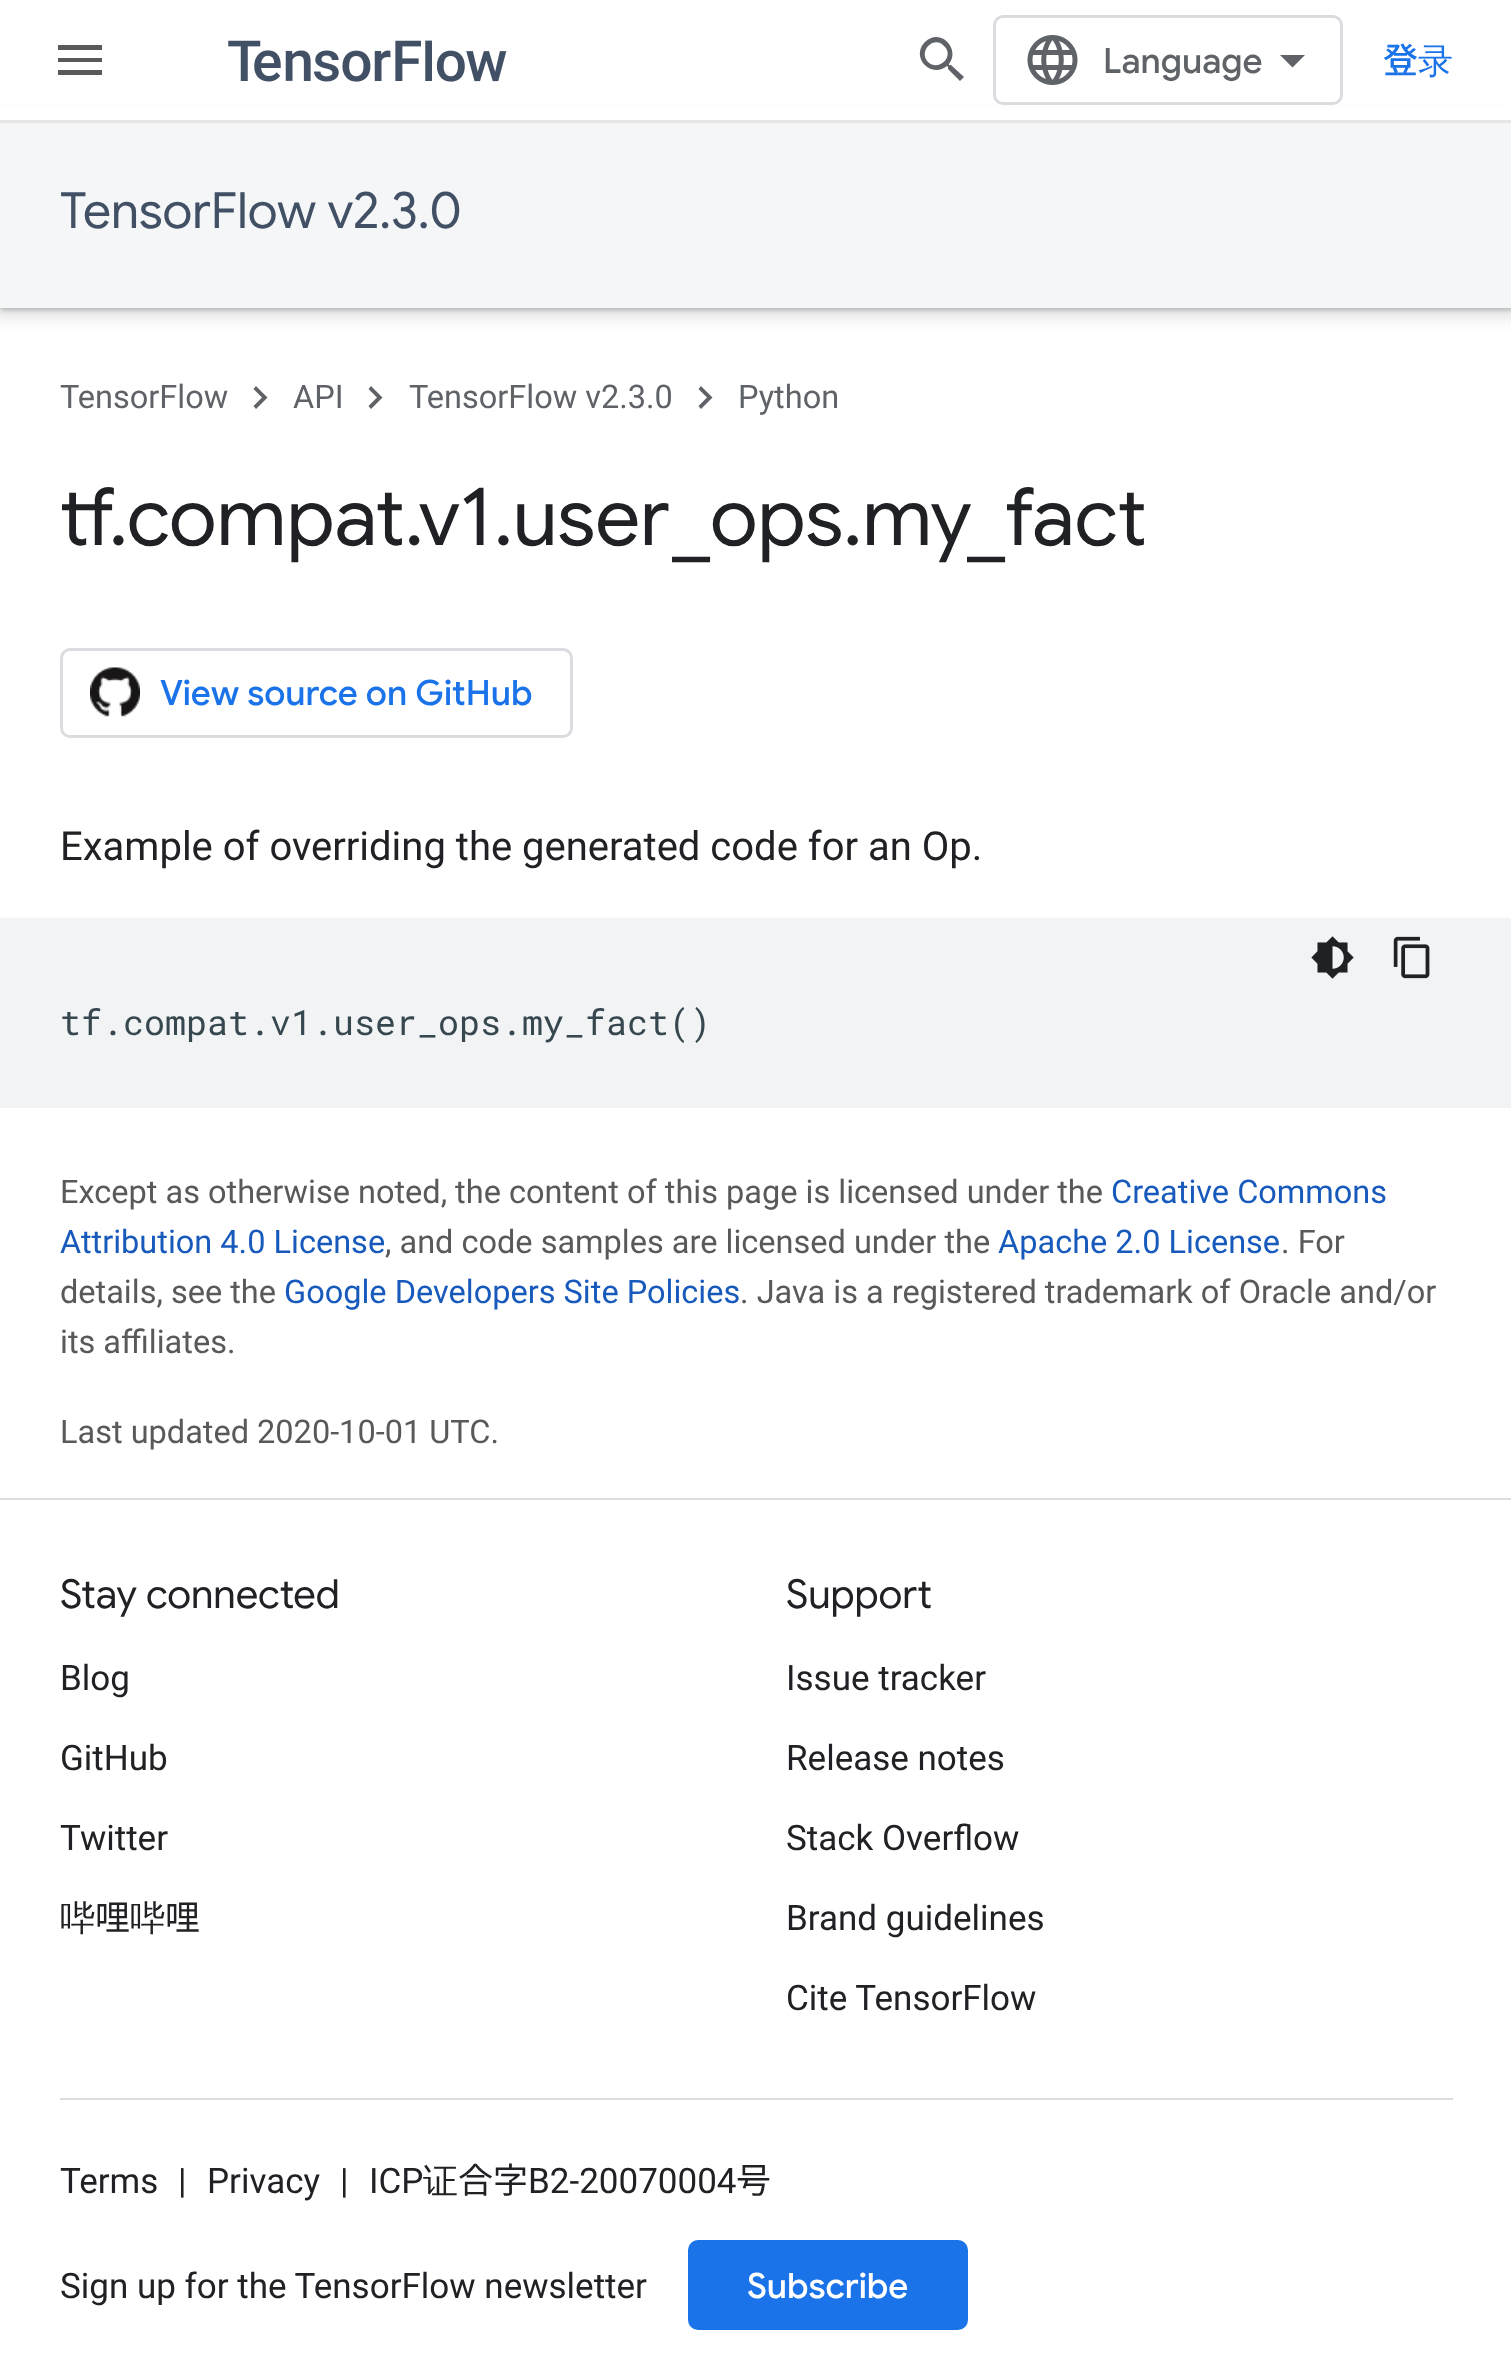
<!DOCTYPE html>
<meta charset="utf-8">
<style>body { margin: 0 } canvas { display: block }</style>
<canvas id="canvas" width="1511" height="2366"></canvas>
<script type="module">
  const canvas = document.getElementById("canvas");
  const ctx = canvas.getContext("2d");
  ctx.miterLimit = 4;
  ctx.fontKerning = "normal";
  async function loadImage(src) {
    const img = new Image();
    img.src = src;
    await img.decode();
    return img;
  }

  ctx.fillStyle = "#ffffff";
  ctx.fillRect(0, 0, 1511, 2366);
  ctx.fillStyle = "rgba(60, 64, 67, 0.15)";
  ctx.filter = "blur(7.5px)";
  ctx.beginPath();
  ctx.rect(-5, 118, 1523, 200);
  ctx.fill();
  ctx.filter = "none";
  ctx.fillStyle = "rgba(60, 64, 67, 0.3)";
  ctx.filter = "blur(2.5px)";
  ctx.beginPath();
  ctx.rect(0, 120, 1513, 190);
  ctx.fill();
  ctx.filter = "none";
  ctx.fillStyle = "#ffffff";
  ctx.fillRect(0, 108, 1511, 12);
  ctx.fillStyle = "#e6e6e6";
  ctx.fillRect(0, 120, 1511, 3);
  ctx.fillStyle = "#595959";
  ctx.beginPath();
  ctx.moveTo(58, 45);
  ctx.lineTo(102, 45);
  ctx.lineTo(102, 50);
  ctx.lineTo(58, 50);
  ctx.closePath();
  ctx.moveTo(58, 62);
  ctx.lineTo(58, 58);
  ctx.lineTo(102, 58);
  ctx.lineTo(102, 62);
  ctx.closePath();
  ctx.moveTo(58, 75);
  ctx.lineTo(58, 70);
  ctx.lineTo(102, 70);
  ctx.lineTo(102, 75);
  ctx.closePath();
  ctx.fill();
  ctx.drawImage(await loadImage("img1.png"), 228, 40, 279, 42);
  ctx.fillStyle = "#5f6368";
  ctx.beginPath();
  ctx.moveTo(928, 62);
  ctx.bezierCurveTo(939, 72, 955, 56, 944, 46);
  ctx.bezierCurveTo(934, 35, 918, 51, 928, 62);
  ctx.closePath();
  ctx.moveTo(951, 65);
  ctx.lineTo(964, 77);
  ctx.lineTo(960, 81);
  ctx.lineTo(948, 69);
  ctx.lineTo(948, 67);
  ctx.lineTo(947, 66);
  ctx.bezierCurveTo(931, 79, 910, 57, 925, 42);
  ctx.bezierCurveTo(940, 27, 961, 49, 949, 64);
  ctx.lineTo(949, 65);
  ctx.closePath();
  ctx.fill();
  ctx.beginPath();
  ctx.roundRect(994.5, 16.5, 347, 87, 8.5);
  ctx.strokeStyle = "#dadce0";
  ctx.lineWidth = 3;
  ctx.stroke();
  ctx.drawImage(await loadImage("img2.png"), 1027, 35, 51, 50);
  ctx.font = "500 35px Google Sans";
  ctx.fillText("Language", 1103, 73);
  ctx.beginPath();
  ctx.moveTo(1292.5, 67.5);
  ctx.lineTo(1280, 55);
  ctx.lineTo(1305, 55);
  ctx.closePath();
  ctx.fill();
  ctx.font = "500 35px Noto Sans JP";
  ctx.fillStyle = "#1a73e8";
  ctx.fillText("登", 1383, 73);
  ctx.font = "500 35px WenQuanYi Zen Hei";
  ctx.fillText("录", 1418, 73);
  ctx.fillStyle = "#f5f6f7";
  ctx.fillRect(0, 123, 1511, 185);
  ctx.font = "50px Google Sans";
  ctx.fillStyle = "#425066";
  ctx.fillText("TensorFlow v2.3.0", 60, 228);
  ctx.font = "32.5px Roboto";
  ctx.fillStyle = "#5f6368";
  ctx.fillText("TensorFlow", 60, 408);
  ctx.beginPath();
  ctx.moveTo(256, 386);
  ctx.lineTo(267.5, 397.5);
  ctx.lineTo(256, 409);
  ctx.lineTo(253.5, 406);
  ctx.lineTo(262, 397.5);
  ctx.lineTo(253.5, 389);
  ctx.closePath();
  ctx.fill();
  ctx.fillText("API", 293, 408);
  ctx.beginPath();
  ctx.moveTo(371, 386);
  ctx.lineTo(382.5, 397.5);
  ctx.lineTo(371, 409);
  ctx.lineTo(368.5, 406);
  ctx.lineTo(377, 397.5);
  ctx.lineTo(368.5, 389);
  ctx.closePath();
  ctx.fill();
  ctx.fillText("TensorFlow v2.3.0", 409, 408);
  ctx.beginPath();
  ctx.moveTo(701, 386);
  ctx.lineTo(712.5, 397.5);
  ctx.lineTo(701, 409);
  ctx.lineTo(698.5, 406);
  ctx.lineTo(707, 397.5);
  ctx.lineTo(698.5, 389);
  ctx.closePath();
  ctx.fill();
  ctx.fillText("Python", 738, 408);
  ctx.font = "80px Google Sans";
  ctx.fillStyle = "#202124";
  ctx.fillText("tf", 60, 545);
  ctx.fillText(".compat.v1.user", 109, 545);
  ctx.fillText("_ops.my", 672, 545);
  ctx.fillText("_fact", 967, 545);
  ctx.beginPath();
  ctx.roundRect(61.5, 649.5, 510, 87, 8.5);
  ctx.stroke();
  ctx.drawImage(await loadImage("img3.png"), 90, 667, 50, 50);
  ctx.font = "500 35px Google Sans";
  ctx.fillStyle = "#1a73e8";
  ctx.fillText("View source on GitHub", 160, 705);
  ctx.font = "40px Roboto";
  ctx.fillStyle = "#202124";
  ctx.fillText("Example of overriding the generated code for an Op.", 60, 860);
  ctx.fillStyle = "#f1f3f4";
  ctx.fillRect(0, 918, 1511, 190);
  ctx.drawImage(await loadImage("img4.png"), 1311, 936, 43, 43);
  ctx.drawImage(await loadImage("img5.png"), 1393, 936, 37, 43);
  ctx.font = "35px Roboto Mono";
  ctx.fillStyle = "#37474f";
  ctx.fillText("tf.compat.v1.user_ops.my_fact()", 60, 1035);
  ctx.font = "32.5px Roboto";
  ctx.fillStyle = "#595959";
  ctx.fillText("Except as otherwise noted, the content of this page is licensed under the", 60, 1203);
  ctx.fillStyle = "#185abc";
  ctx.fillText("Creative Commons", 1111, 1203);
  ctx.fillText("Attribution 4.0 License", 60, 1253);
  ctx.fillStyle = "#595959";
  ctx.fillText(", and code samples are licensed under the", 385, 1253);
  ctx.fillStyle = "#185abc";
  ctx.fillText("Apache 2.0 License", 998, 1253);
  ctx.fillStyle = "#595959";
  ctx.fillText(". For", 1281, 1253);
  ctx.fillText("details, see the", 60, 1303);
  ctx.fillStyle = "#185abc";
  ctx.fillText("Google Developers Site Policies", 284, 1303);
  ctx.fillStyle = "#595959";
  ctx.fillText(". Java is a registered trademark of Oracle and/or", 740, 1303);
  ctx.fillText("its affiliates.", 60, 1353);
  ctx.fillText("Last updated 2020-10-01 UTC.", 60, 1443);
  ctx.fillStyle = "#dadce0";
  ctx.fillRect(0, 1498, 1511, 2);
  ctx.fillRect(60, 2098, 1393, 2);
  ctx.font = "40px Google Sans";
  ctx.fillStyle = "#202124";
  ctx.fillText("Stay connected", 60, 1608);
  ctx.font = "35px Roboto";
  ctx.fillText("Blog", 60, 1690);
  ctx.fillText("GitHub", 60, 1770);
  ctx.fillText("Twitter", 60, 1850);
  ctx.font = "500 35px WenQuanYi Zen Hei";
  ctx.fillText("哔", 60, 1930);
  ctx.font = "35px Noto Sans JP";
  ctx.fillText("哩", 95, 1930);
  ctx.font = "500 35px WenQuanYi Zen Hei";
  ctx.fillText("哔", 130, 1930);
  ctx.font = "35px Noto Sans JP";
  ctx.fillText("哩", 165, 1930);
  ctx.font = "40px Google Sans";
  ctx.fillText("Support", 786, 1608);
  ctx.font = "35px Roboto";
  ctx.fillText("Issue tracker", 786, 1690);
  ctx.fillText("Release notes", 786, 1770);
  ctx.fillText("Stack Overflow", 786, 1850);
  ctx.fillText("Brand guidelines", 786, 1930);
  ctx.fillText("Cite TensorFlow", 786, 2010);
  ctx.fillText("Terms", 60, 2193);
  ctx.fillText("|", 178, 2193);
  ctx.fillText("Privacy", 207, 2193);
  ctx.fillText("|", 340, 2193);
  ctx.fillText("ICP", 369, 2193);
  ctx.font = "500 35px WenQuanYi Zen Hei";
  ctx.fillText("证", 423, 2193);
  ctx.font = "35px Noto Sans JP";
  ctx.fillText("合字", 458, 2193);
  ctx.font = "35px Roboto";
  ctx.fillText("B2-20070004", 528, 2193);
  ctx.font = "35px Noto Sans JP";
  ctx.fillText("号", 736, 2193);
  ctx.font = "35px Roboto";
  ctx.fillText("Sign up for the TensorFlow newsletter", 60, 2298);
  ctx.fillStyle = "#1a73e8";
  ctx.beginPath();
  ctx.roundRect(688, 2240, 280, 90, 10);
  ctx.fill();
  ctx.font = "500 35px Google Sans";
  ctx.fillStyle = "#ffffff";
  ctx.fillText("Subscribe", 747, 2298);
</script>
